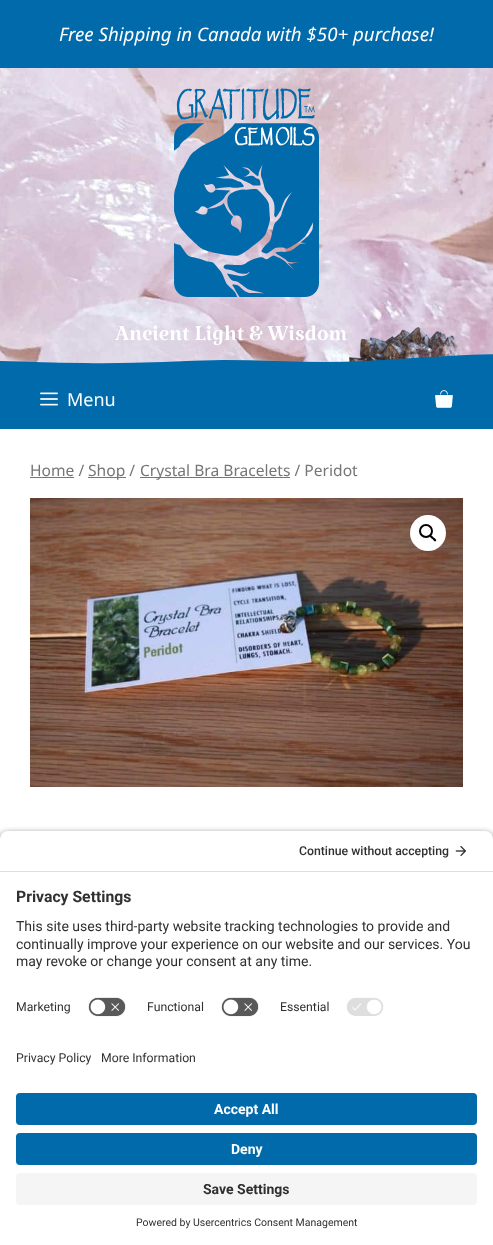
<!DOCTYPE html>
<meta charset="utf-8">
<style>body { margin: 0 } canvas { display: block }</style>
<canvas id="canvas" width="493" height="1245"></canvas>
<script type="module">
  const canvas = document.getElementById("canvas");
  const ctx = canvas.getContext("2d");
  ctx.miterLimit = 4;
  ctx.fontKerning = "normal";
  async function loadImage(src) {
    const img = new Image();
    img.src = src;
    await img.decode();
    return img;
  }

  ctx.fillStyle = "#ffffff";
  ctx.fillRect(0, 0, 493, 1245);
  ctx.fillStyle = "#006aab";
  ctx.fillRect(0, 0, 493, 68);
  ctx.font = "italic 18.7px Noto Sans";
  ctx.fillStyle = "#ffffff";
  ctx.fillText("Free Shipping in Canada with $50+ purchase!", 59, 41);
  ctx.drawImage(await loadImage("img1.png"), 0, 68, 493, 296);
  ctx.drawImage(await loadImage("img2.png"), 174, 88, 145, 209);
  ctx.drawImage(await loadImage("img3.png"), 349, 327, 111, 35);
  ctx.font = "30px Katibeh";
  ctx.fillText("Ancient Light & Wisdom", 115, 340);
  ctx.fillStyle = "#006aab";
  ctx.beginPath();
  ctx.moveTo(-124, 368);
  ctx.bezierCurveTo(-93, 365, -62, 362, -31, 361);
  ctx.bezierCurveTo(7, 360, 46, 363, 84, 363);
  ctx.bezierCurveTo(130, 364, 177, 361, 223, 360);
  ctx.bezierCurveTo(258, 360, 292, 362, 327, 362);
  ctx.bezierCurveTo(373, 362, 419, 357, 466, 355);
  ctx.bezierCurveTo(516, 353, 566, 354, 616, 357);
  ctx.lineTo(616, 370);
  ctx.lineTo(-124, 370);
  ctx.closePath();
  ctx.fill();
  ctx.fillRect(0, 370, 493, 59);
  ctx.drawImage(await loadImage("img4.png"), 40, 392, 18, 14);
  ctx.font = "18px Noto Sans";
  ctx.fillStyle = "#ffffff";
  ctx.fillText("Menu", 67, 406);
  ctx.drawImage(await loadImage("img5.png"), 435, 390, 18, 18);
  ctx.font = "15.6px Noto Sans";
  ctx.fillStyle = "#767676";
  ctx.fillText("Home /", 30, 476);
  ctx.fillRect(30, 477, 44, 1);
  ctx.fillRect(88, 477, 38, 1);
  ctx.fillText("Shop /", 88, 476);
  ctx.fillRect(140, 477, 150, 1);
  ctx.fillText("Crystal Bra Bracelets / Peridot", 140, 476);
  ctx.drawImage(await loadImage("img6.png"), 30, 498, 433, 289);
  ctx.fillStyle = "#ffffff";
  ctx.beginPath();
  ctx.arc(428, 533, 18, 0, Math.PI * 2);
  ctx.fill();
  ctx.beginPath();
  ctx.arc(426, 531, 6, 0, Math.PI * 2);
  ctx.strokeStyle = "#000000";
  ctx.lineWidth = 2;
  ctx.stroke();
  ctx.fillStyle = "#000000";
  ctx.beginPath();
  ctx.moveTo(430, 535.5);
  ctx.bezierCurveTo(431.5, 534.5, 433, 537, 433.5, 537.5);
  ctx.bezierCurveTo(434.5, 538, 437, 540, 436, 541);
  ctx.bezierCurveTo(434.5, 542.5, 433, 539.5, 432.5, 539);
  ctx.bezierCurveTo(431.5, 538.5, 429, 536.5, 430, 535.5);
  ctx.closePath();
  ctx.fill();
  ctx.fillStyle = "rgba(0, 0, 0, 0.8)";
  ctx.filter = "blur(3.5px)";
  ctx.beginPath();
  ctx.roundRect(0, 834, 493, 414, 8);
  ctx.fill();
  ctx.filter = "none";
  ctx.fillStyle = "#ffffff";
  ctx.beginPath();
  ctx.roundRect(0, 831, 493, 41, [8, 8, 0, 0]);
  ctx.fill();
  ctx.fillStyle = "#dedede";
  ctx.fillRect(0, 871, 493, 1);
  ctx.font = "500 12.25px Roboto";
  ctx.fillStyle = "#303030";
  ctx.fillText("Continue without accepting", 299, 855);
  ctx.drawImage(await loadImage("img7.png"), 455, 846, 11, 10);
  ctx.fillStyle = "#ffffff";
  ctx.fillRect(0, 872, 493, 373);
  ctx.font = "bold 15.75px Roboto";
  ctx.fillStyle = "#303030";
  ctx.fillText("Privacy Settings", 16, 902);
  ctx.font = "14px Roboto";
  ctx.fillText("This site uses third-party website tracking technologies to provide and", 16, 931);
  ctx.fillText("continually improve your experience on our website and our services. You", 16, 949);
  ctx.fillText("may revoke or change your consent at any time.", 16, 966);
  ctx.font = "12.25px Roboto";
  ctx.fillText("Marketing", 16, 1011);
  ctx.drawImage(await loadImage("img8.png"), 88, 997, 38, 20);
  ctx.fillText("Functional", 147, 1011);
  ctx.drawImage(await loadImage("img8.png"), 221, 997, 38, 20);
  ctx.fillText("Essential", 280, 1011);
  ctx.drawImage(await loadImage("img9.png"), 346, 997, 38, 19);
  ctx.fillText("Privacy Policy", 16, 1062);
  ctx.fillText("More Information", 101, 1062);
  ctx.fillStyle = "#016aab";
  ctx.beginPath();
  ctx.roundRect(16, 1093, 461, 32, 4);
  ctx.fill();
  ctx.font = "bold 14px Roboto";
  ctx.fillStyle = "#ffffff";
  ctx.fillText("Accept All", 214, 1114);
  ctx.fillStyle = "#016aab";
  ctx.beginPath();
  ctx.roundRect(16, 1133, 461, 32, 4);
  ctx.fill();
  ctx.fillStyle = "#ffffff";
  ctx.fillText("Deny", 231, 1154);
  ctx.fillStyle = "#f5f5f5";
  ctx.beginPath();
  ctx.roundRect(16, 1173, 461, 32, 4);
  ctx.fill();
  ctx.fillStyle = "#303030";
  ctx.fillText("Save Settings", 203, 1194);
  ctx.font = "10.5px Roboto";
  ctx.fillText("Powered by Usercentrics Consent Management", 136, 1226);
</script>
